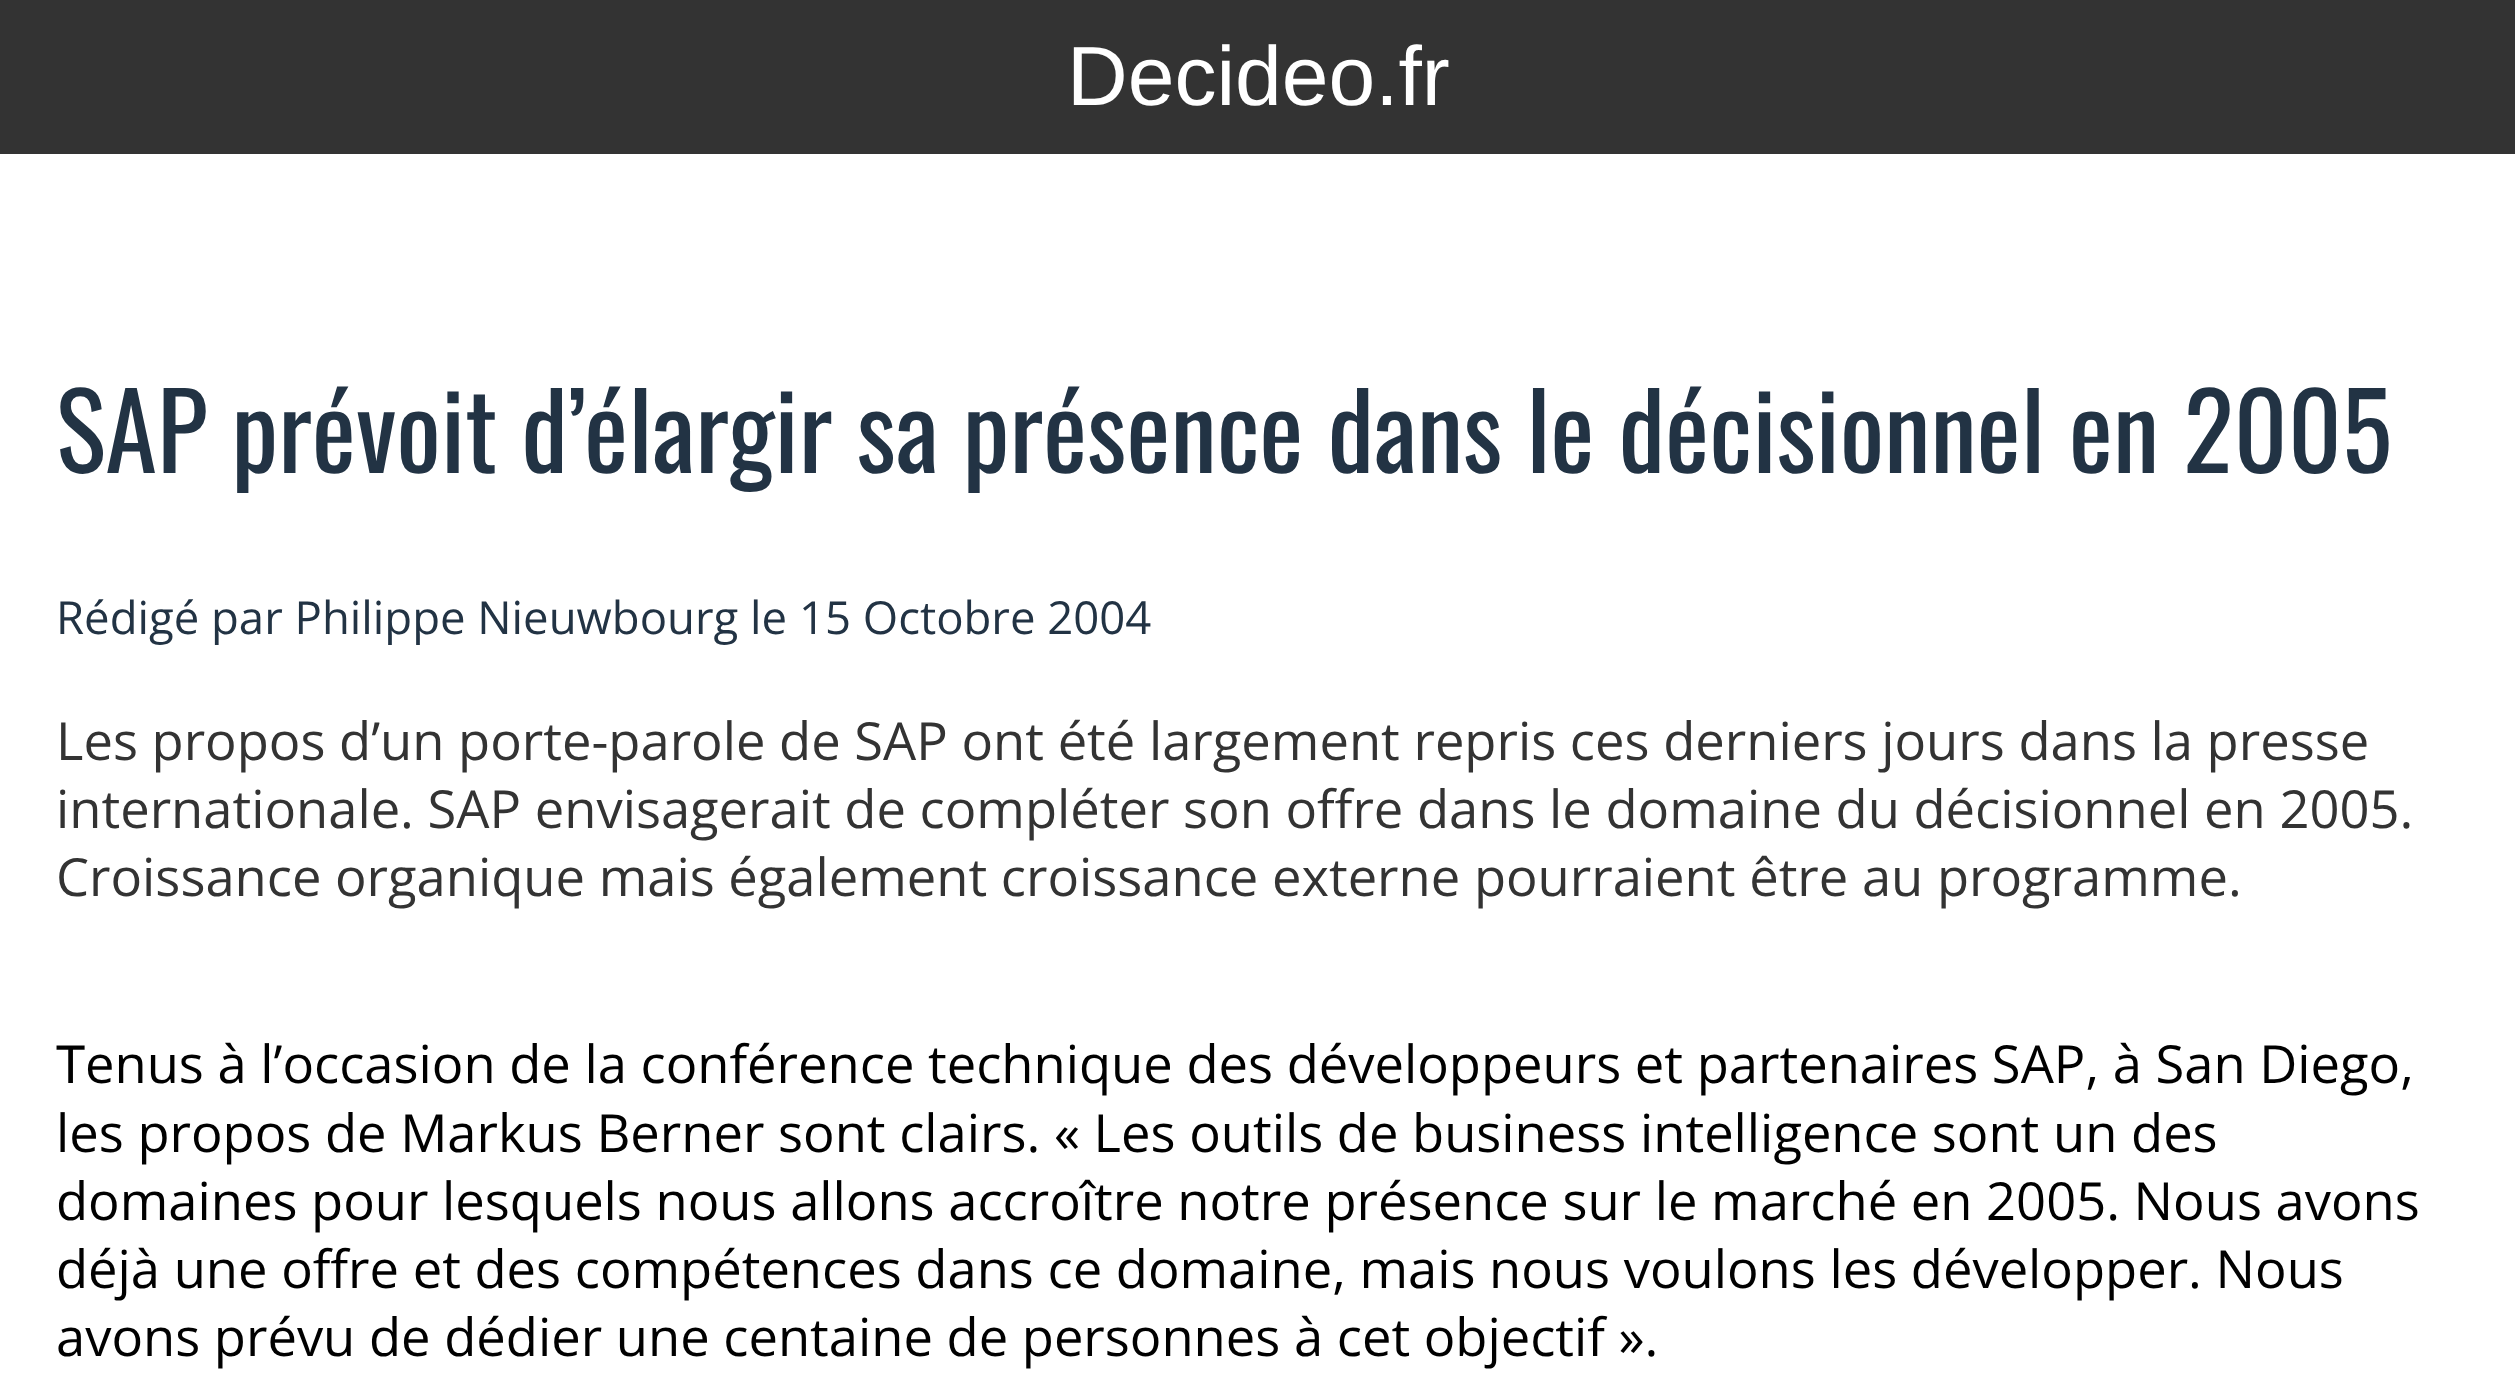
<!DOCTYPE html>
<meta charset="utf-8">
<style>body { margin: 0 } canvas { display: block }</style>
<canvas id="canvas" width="2515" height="1398"></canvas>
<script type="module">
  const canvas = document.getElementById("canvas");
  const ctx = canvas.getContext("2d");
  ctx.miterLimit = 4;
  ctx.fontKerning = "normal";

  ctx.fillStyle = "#ffffff";
  ctx.fillRect(0, 0, 2515, 1398);
  ctx.fillStyle = "#333333";
  ctx.fillRect(0, 0, 2515, 154);
  ctx.font = "84px Liberation Sans";
  ctx.fillStyle = "#ffffff";
  ctx.fillText("Decideo.fr", 1067, 105);
  ctx.font = "105px Oswald";
  ctx.fillStyle = "#223344";
  ctx.fillText("SAP prévoit d’élargir sa présence dans le décisionnel en 2005", 56, 473);
  ctx.font = "45.5px Open Sans";
  ctx.fillText("Rédigé par Philippe Nieuwbourg le 15 Octobre 2004", 56, 634);
  ctx.font = "52.5px Open Sans";
  ctx.fillStyle = "#333333";
  ctx.fillText("Les propos d’un porte-parole de SAP ont été largement repris ces derniers jours dans la presse", 56, 760);
  ctx.fillText("internationale. SAP envisagerait de compléter son offre dans le domaine du décisionnel en 2005.", 56, 828);
  ctx.fillText("Croissance organique mais également croissance externe pourraient être au programme.", 56, 896);
  ctx.font = "52.5px Noto Sans";
  ctx.fillStyle = "#000000";
  ctx.fillText("T", 56, 1083);
  ctx.font = "52.5px Open Sans";
  ctx.fillText("enus à l’occasion de la conférence technique des développeurs et partenaires SAP, à San Diego,", 85, 1083);
  ctx.fillText("les propos de Markus Berner sont clairs. « Les outils de business intelligence sont un des", 56, 1152);
  ctx.fillText("domaines pour lesquels nous allons accroître notre présence sur le marché en 2005. Nous avons", 56, 1220);
  ctx.fillText("déjà une offre et des compétences dans ce domaine, mais nous voulons les développer. Nous", 56, 1288);
  ctx.fillText("avons prévu de dédier une centaine de personnes à cet objectif ».", 56, 1356);
</script>
